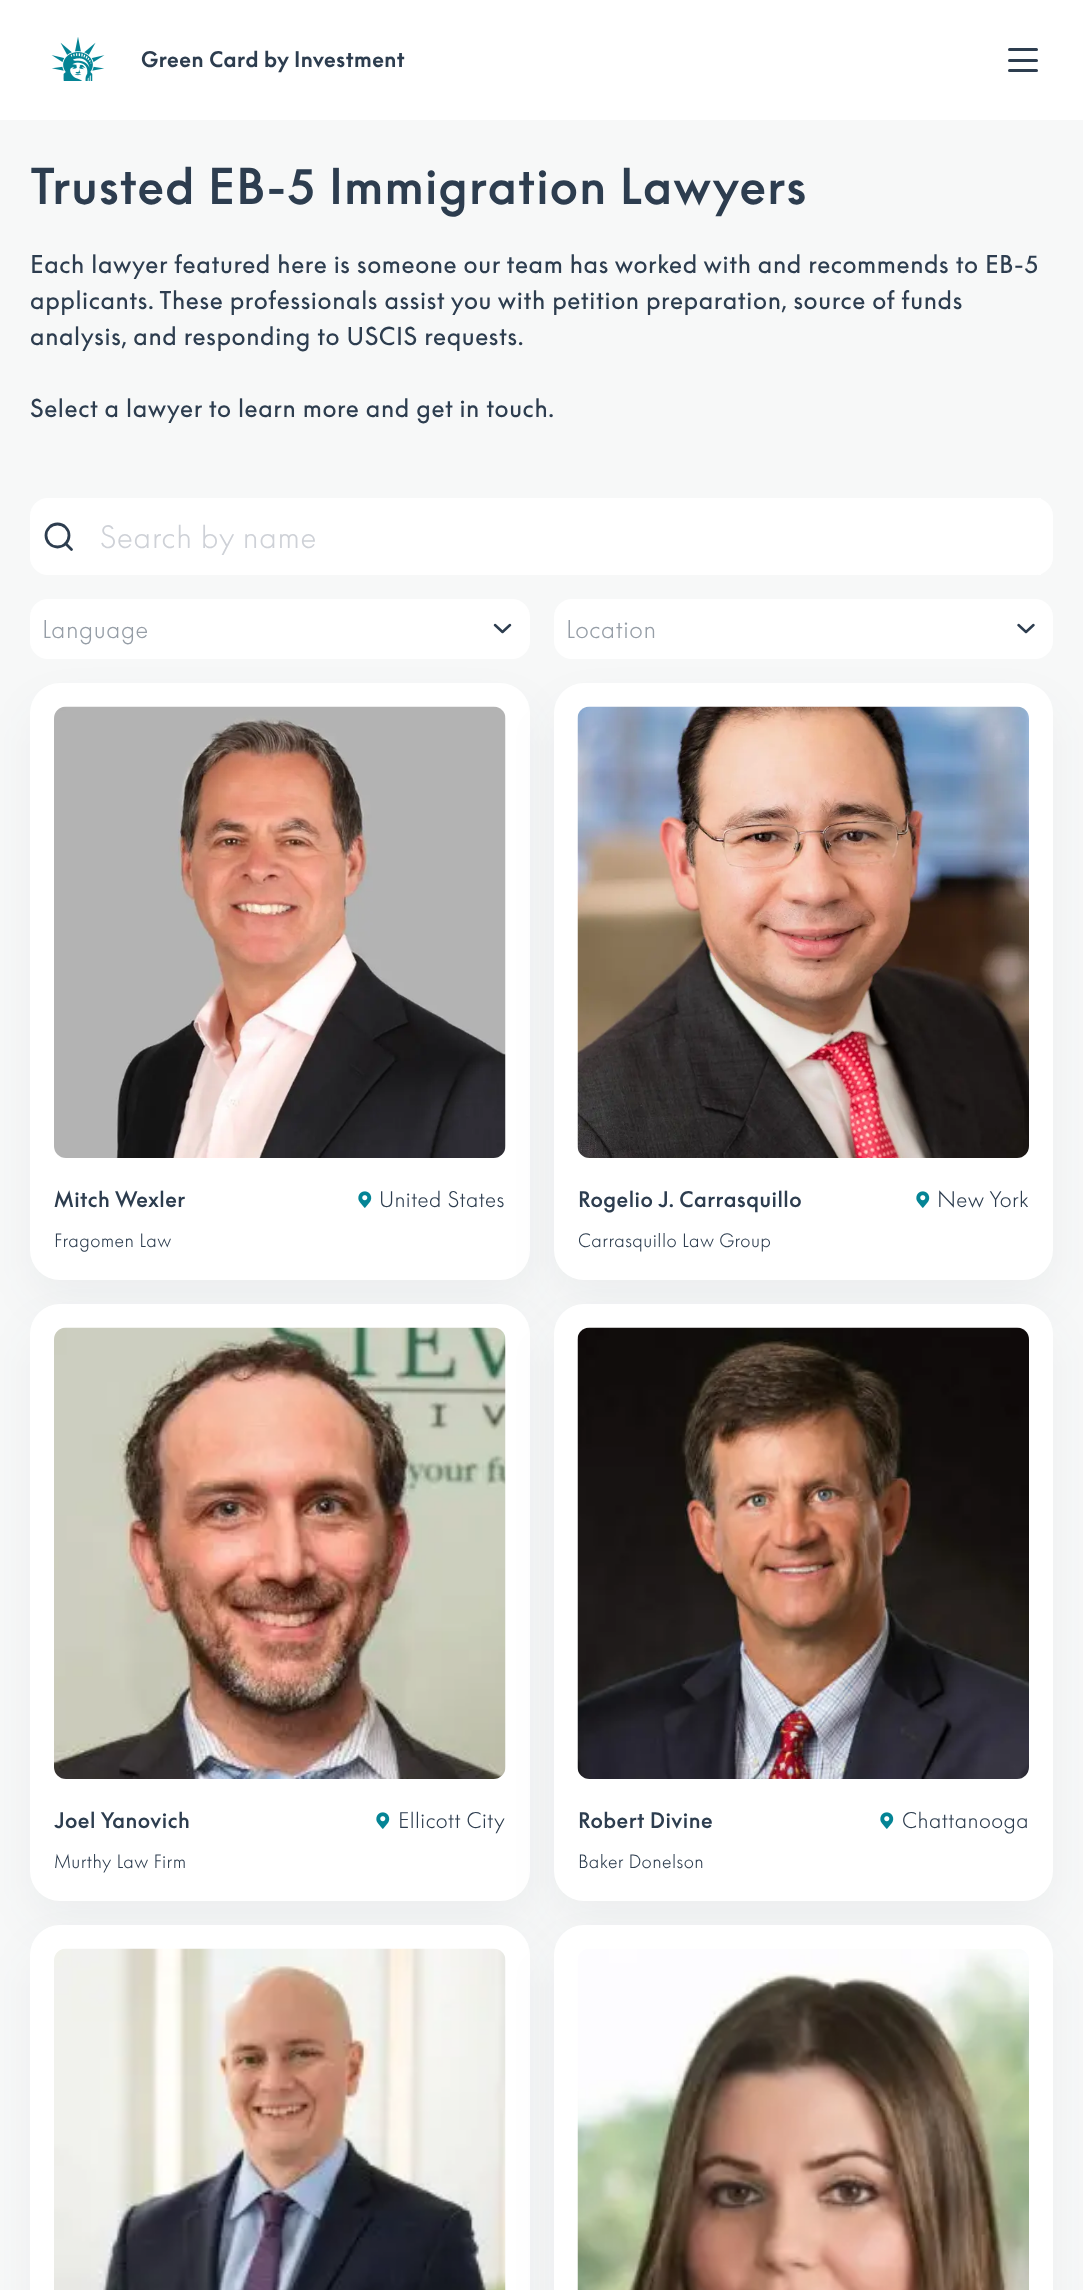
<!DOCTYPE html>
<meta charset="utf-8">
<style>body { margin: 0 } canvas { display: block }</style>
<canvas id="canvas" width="1083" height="2290"></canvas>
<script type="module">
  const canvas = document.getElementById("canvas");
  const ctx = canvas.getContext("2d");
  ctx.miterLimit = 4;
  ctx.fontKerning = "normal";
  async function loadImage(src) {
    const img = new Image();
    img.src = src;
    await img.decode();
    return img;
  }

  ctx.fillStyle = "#f7f8f8";
  ctx.fillRect(0, 0, 1083, 2290);
  ctx.fillStyle = "#ffffff";
  ctx.fillRect(0, 0, 1083, 120);
  ctx.drawImage(await loadImage("img1.png"), 51, 37, 54, 44);
  ctx.letterSpacing = "0.5px";
  ctx.font = "bold 21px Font";
  ctx.fillStyle = "#2d3d4f";
  ctx.fillText("Green Card by Investment", 141, 67);
  ctx.beginPath();
  ctx.roundRect(1008, 48, 30, 3, 1.5);
  ctx.fill();
  ctx.beginPath();
  ctx.roundRect(1008, 59, 30, 3, 1.5);
  ctx.fill();
  ctx.beginPath();
  ctx.roundRect(1008, 69, 30, 3, 1.5);
  ctx.fill();
  ctx.letterSpacing = "1.2px";
  ctx.font = "500 48px Font";
  ctx.fillText("Trusted EB-5 Immigration Lawyers", 30, 204);
  ctx.letterSpacing = "0.6px";
  ctx.font = "24px Font";
  ctx.fillText("Each lawyer featured here is someone our team has worked with and recommends to EB-5", 30, 273);
  ctx.fillText("applicants. These professionals assist you with petition preparation, source of funds", 30, 309);
  ctx.fillText("analysis, and responding to USCIS requests.", 30, 345);
  ctx.fillText("Select a lawyer to learn more and get in touch.", 30, 417);
  ctx.fillStyle = "#ffffff";
  ctx.beginPath();
  ctx.roundRect(30, 498, 1023, 77, 18);
  ctx.fill();
  ctx.beginPath();
  ctx.arc(57.5, 535.5, 11.5, 0, Math.PI * 2);
  ctx.strokeStyle = "#2d3d4f";
  ctx.lineWidth = 2.8;
  ctx.stroke();
  ctx.beginPath();
  ctx.moveTo(71.5, 549.5);
  ctx.lineTo(65.5, 543.5);
  ctx.lineCap = "round";
  ctx.lineJoin = "round";
  ctx.stroke();
  ctx.fillRect(1038, 498, 3, 77);
  ctx.save();
  ctx.beginPath();
  ctx.rect(101, 518, 940, 37);
  ctx.clip();
  ctx.letterSpacing = "0.75px";
  ctx.font = "300 30px Font";
  ctx.fillStyle = "#ced1d7";
  ctx.fillText("Search by name", 100, 548);
  ctx.restore();
  ctx.beginPath();
  ctx.roundRect(30, 599, 500, 60, 18);
  ctx.fill();
  ctx.beginPath();
  ctx.roundRect(554, 599, 499, 60, 18);
  ctx.fill();
  ctx.fillStyle = "rgba(45, 61, 79, 0.05)";
  ctx.filter = "blur(22.5px)";
  ctx.beginPath();
  ctx.roundRect(30, 705, 500, 597, 30);
  ctx.fill();
  ctx.filter = "none";
  ctx.font = "300 24px Font";
  ctx.fillStyle = "#969ea7";
  ctx.fillText("Language", 42, 638);
  ctx.beginPath();
  ctx.moveTo(495, 625);
  ctx.lineTo(502.5, 632);
  ctx.lineTo(510, 625);
  ctx.lineWidth = 2.5;
  ctx.stroke();
  ctx.fillStyle = "#ffffff";
  ctx.beginPath();
  ctx.roundRect(30, 683, 500, 597, 30);
  ctx.fill();
  ctx.fillStyle = "rgba(45, 61, 79, 0.05)";
  ctx.filter = "blur(22.5px)";
  ctx.beginPath();
  ctx.roundRect(554, 705, 499, 597, 30);
  ctx.fill();
  ctx.filter = "none";
  ctx.fillStyle = "#969ea7";
  ctx.fillText("Location", 566, 638);
  ctx.beginPath();
  ctx.moveTo(1018.5, 625);
  ctx.lineTo(1026, 632);
  ctx.lineTo(1033.5, 625);
  ctx.stroke();
  ctx.drawImage(await loadImage("img2.png"), 54, 706, 452, 452);
  ctx.letterSpacing = "0.5px";
  ctx.font = "500 21px Font";
  ctx.fillStyle = "#2d3d4f";
  ctx.fillText("Mitch Wexler", 54, 1207);
  ctx.drawImage(await loadImage("img3.png"), 358, 1191, 14, 17);
  ctx.font = "300 21px Font";
  ctx.fillText("United States", 379, 1207);
  ctx.letterSpacing = "0.45px";
  ctx.font = "300 18px Font";
  ctx.fillText("Fragomen Law", 54, 1247);
  ctx.fillStyle = "#ffffff";
  ctx.beginPath();
  ctx.roundRect(554, 683, 499, 597, 30);
  ctx.fill();
  ctx.drawImage(await loadImage("img4.png"), 577, 706, 452, 452);
  ctx.letterSpacing = "0.5px";
  ctx.font = "500 21px Font";
  ctx.fillStyle = "#2d3d4f";
  ctx.fillText("Rogelio J. Carrasquillo", 578, 1207);
  ctx.drawImage(await loadImage("img3.png"), 916, 1191, 14, 17);
  ctx.font = "300 21px Font";
  ctx.fillText("New York", 937, 1207);
  ctx.letterSpacing = "0.45px";
  ctx.font = "300 18px Font";
  ctx.fillText("Carrasquillo Law Group", 578, 1247);
  ctx.fillStyle = "rgba(45, 61, 79, 0.05)";
  ctx.filter = "blur(22.5px)";
  ctx.beginPath();
  ctx.roundRect(30, 1326, 500, 597, 30);
  ctx.fill();
  ctx.filter = "none";
  ctx.fillStyle = "#ffffff";
  ctx.beginPath();
  ctx.roundRect(30, 1304, 500, 597, 30);
  ctx.fill();
  ctx.fillStyle = "rgba(45, 61, 79, 0.05)";
  ctx.filter = "blur(22.5px)";
  ctx.beginPath();
  ctx.roundRect(554, 1326, 499, 597, 30);
  ctx.fill();
  ctx.filter = "none";
  ctx.drawImage(await loadImage("img5.png"), 54, 1327, 452, 452);
  ctx.letterSpacing = "0.5px";
  ctx.font = "500 21px Font";
  ctx.fillStyle = "#2d3d4f";
  ctx.fillText("Joel Yanovich", 54, 1828);
  ctx.drawImage(await loadImage("img3.png"), 376, 1812, 14, 17);
  ctx.font = "300 21px Font";
  ctx.fillText("Ellicott City", 398, 1828);
  ctx.letterSpacing = "0.45px";
  ctx.font = "300 18px Font";
  ctx.fillText("Murthy Law Firm", 54, 1868);
  ctx.fillStyle = "#ffffff";
  ctx.beginPath();
  ctx.roundRect(554, 1304, 499, 597, 30);
  ctx.fill();
  ctx.drawImage(await loadImage("img6.png"), 577, 1327, 452, 452);
  ctx.letterSpacing = "0.5px";
  ctx.font = "500 21px Font";
  ctx.fillStyle = "#2d3d4f";
  ctx.fillText("Robert Divine", 578, 1828);
  ctx.drawImage(await loadImage("img3.png"), 880, 1812, 14, 17);
  ctx.font = "300 21px Font";
  ctx.fillText("Chattanooga", 902, 1828);
  ctx.letterSpacing = "0.45px";
  ctx.font = "300 18px Font";
  ctx.fillText("Baker Donelson", 578, 1868);
  ctx.fillStyle = "rgba(45, 61, 79, 0.05)";
  ctx.filter = "blur(22.5px)";
  ctx.beginPath();
  ctx.roundRect(30, 1947, 500, 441, 30);
  ctx.fill();
  ctx.filter = "none";
  ctx.fillStyle = "#ffffff";
  ctx.beginPath();
  ctx.roundRect(30, 1925, 500, 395, 30);
  ctx.fill();
  ctx.fillStyle = "rgba(45, 61, 79, 0.05)";
  ctx.filter = "blur(22.5px)";
  ctx.beginPath();
  ctx.roundRect(554, 1947, 499, 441, 30);
  ctx.fill();
  ctx.filter = "none";
  ctx.drawImage(await loadImage("img7.png"), 54, 1948, 452, 342);
  ctx.fillStyle = "#ffffff";
  ctx.beginPath();
  ctx.roundRect(554, 1925, 499, 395, 30);
  ctx.fill();
  ctx.drawImage(await loadImage("img8.png"), 577, 1949, 452, 341);
</script>
